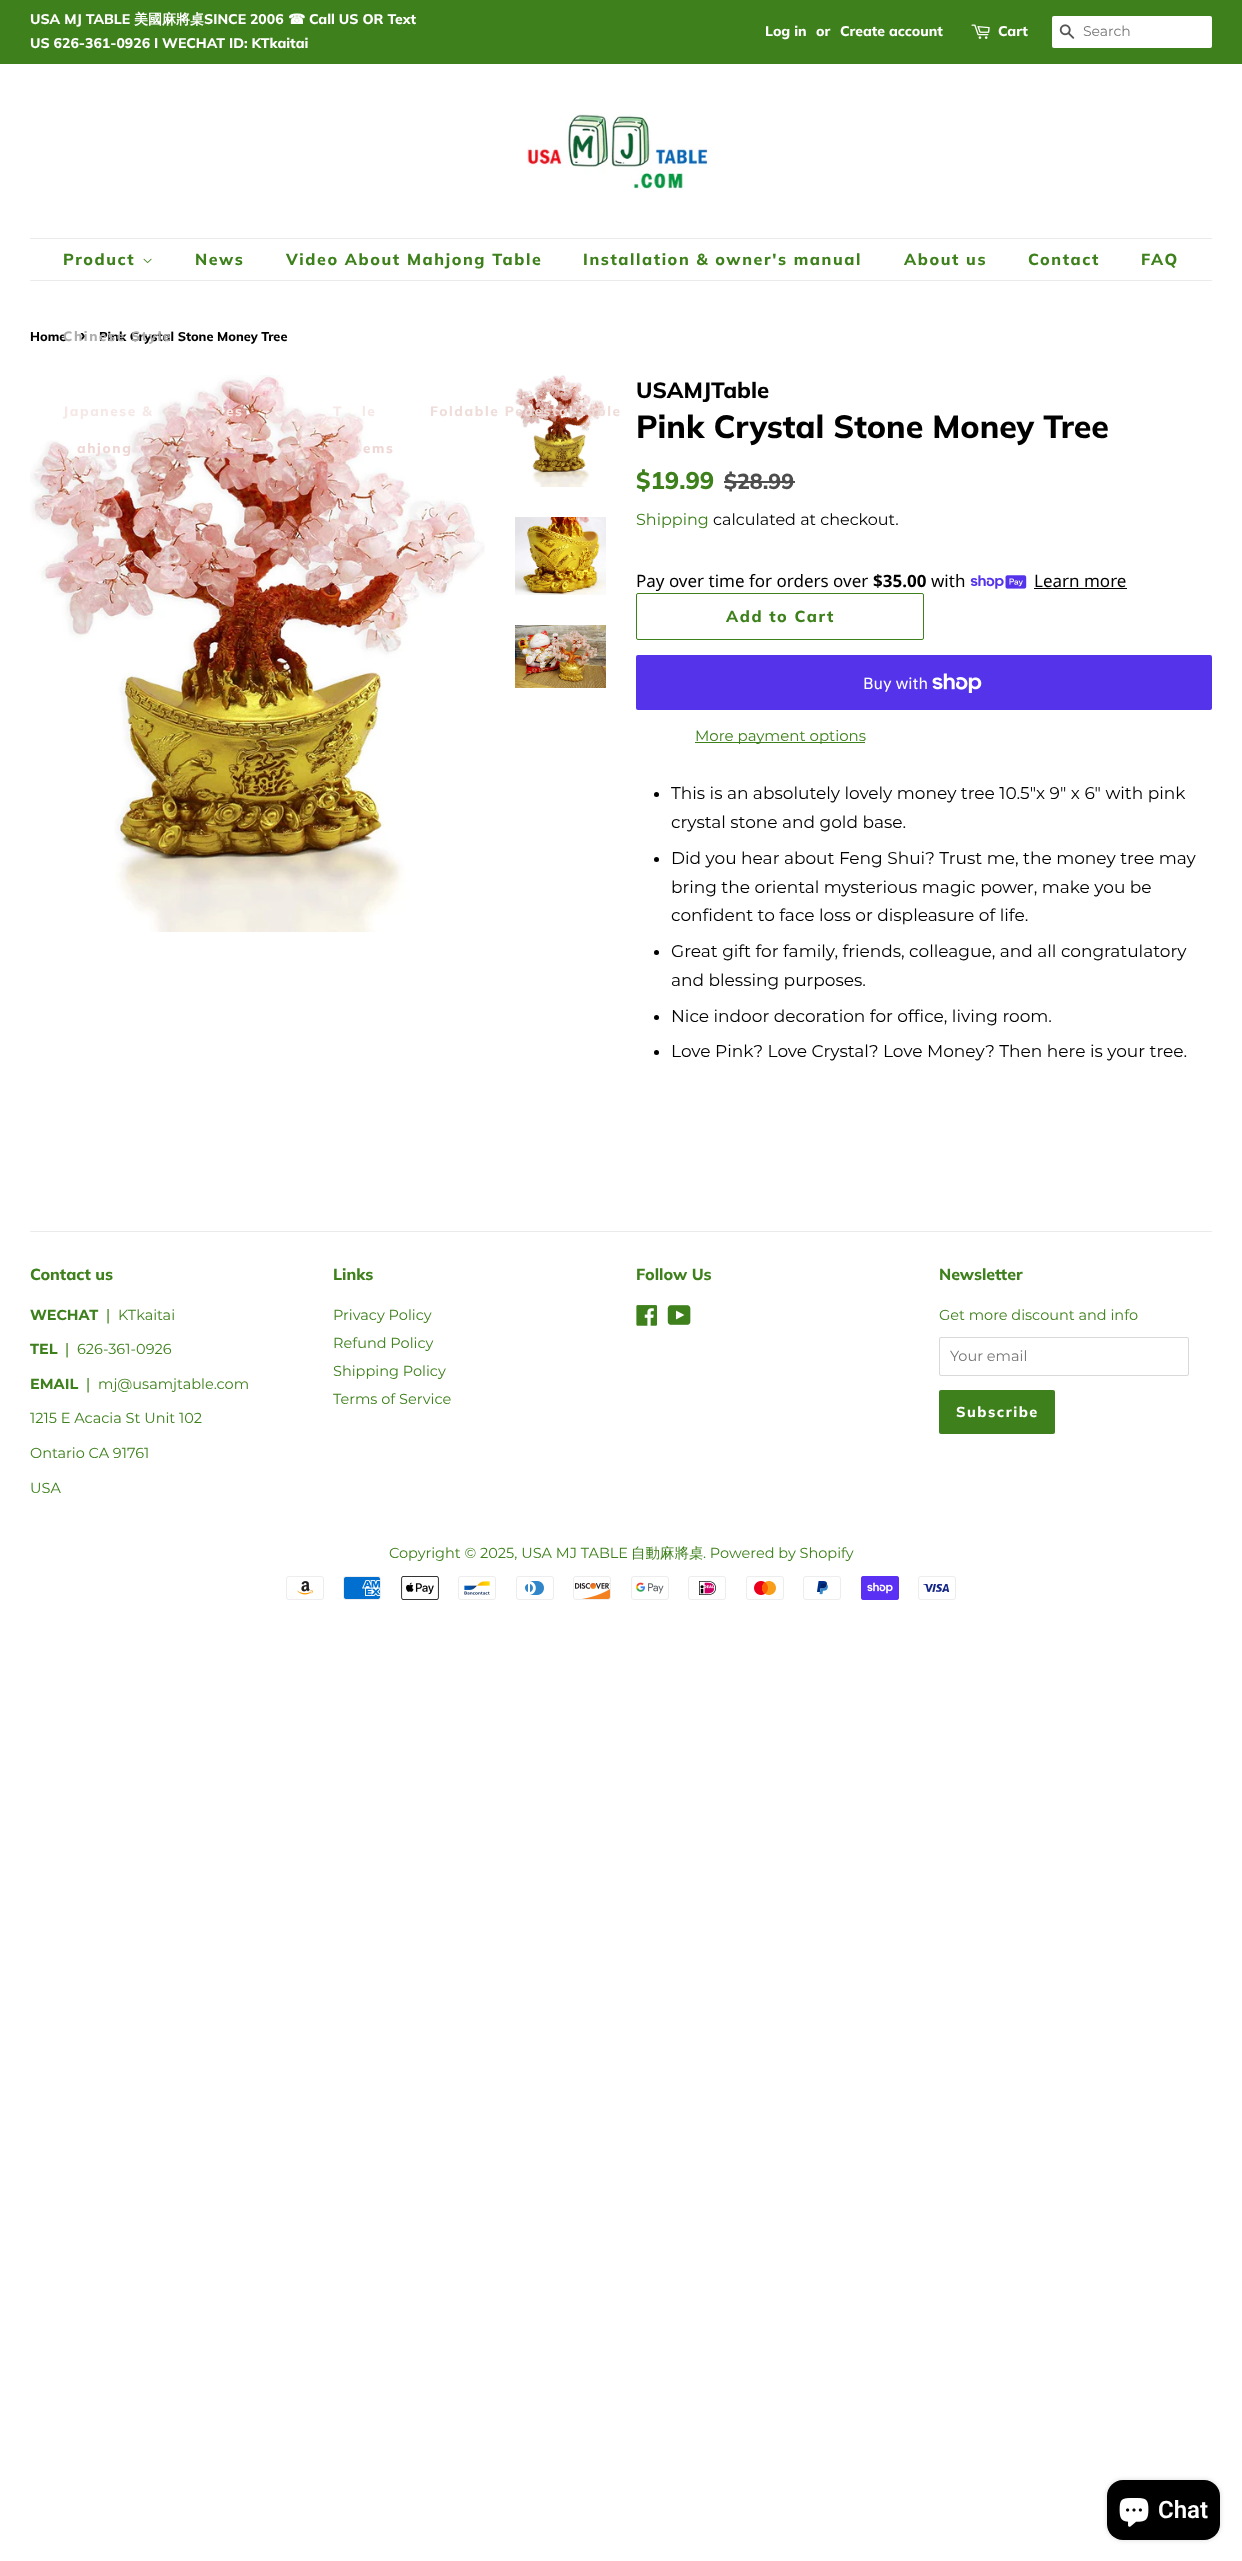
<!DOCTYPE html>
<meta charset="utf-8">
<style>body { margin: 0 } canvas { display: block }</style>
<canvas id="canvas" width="1242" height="2561"></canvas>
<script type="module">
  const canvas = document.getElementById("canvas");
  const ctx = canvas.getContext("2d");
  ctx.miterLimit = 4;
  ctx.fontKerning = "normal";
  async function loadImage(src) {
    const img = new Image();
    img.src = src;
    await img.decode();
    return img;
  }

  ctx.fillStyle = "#ffffff";
  ctx.fillRect(0, 0, 1242, 2561);
  ctx.fillStyle = "#3e801c";
  ctx.fillRect(0, 0, 1242, 64);
  ctx.font = "800 14px Muli";
  ctx.fillStyle = "#ffffff";
  ctx.fillText("USA MJ TABLE", 30, 24);
  ctx.font = "bold 14px WenQuanYi Zen Hei";
  ctx.fillText("美國麻將桌", 134, 24);
  ctx.font = "800 14px Muli";
  ctx.fillText("SINCE 2006", 204, 24);
  ctx.font = "bold 14px DejaVu Sans";
  ctx.fillText("☎", 288, 24);
  ctx.font = "800 14px Muli";
  ctx.fillText("Call US OR Text", 309, 24);
  ctx.fillText("US 626-361-0926 I WECHAT ID: KTkaitai", 30, 48);
  ctx.fillText("Log in", 765, 36);
  ctx.fillText("or", 816, 36);
  ctx.fillText("Create account", 840, 36);
  ctx.drawImage(await loadImage("img1.png"), 971, 24, 19, 15);
  ctx.fillText("Cart", 998, 36);
  ctx.beginPath();
  ctx.roundRect(1052, 16, 160, 32, 2);
  ctx.fill();
  ctx.drawImage(await loadImage("img2.png"), 1059, 24, 16, 15);
  ctx.font = "14px Montserrat";
  ctx.fillStyle = "#757575";
  ctx.fillText("Search", 1083, 36);
  ctx.drawImage(await loadImage("img3.png"), 526, 114, 185, 76);
  ctx.fillStyle = "#ebebeb";
  ctx.fillRect(30, 238, 1182, 1);
  ctx.fillRect(30, 280, 1182, 1);
  ctx.letterSpacing = "1.6px";
  ctx.font = "800 16px Muli";
  ctx.fillStyle = "#3e801c";
  ctx.fillText("Product", 63, 265);
  ctx.drawImage(await loadImage("img4.png"), 143, 258, 9, 6);
  ctx.letterSpacing = "0px";
  ctx.font = "800 12.75px Muli";
  ctx.fillStyle = "#000000";
  ctx.fillText("Home", 30, 341);
  ctx.font = "800 18px Muli";
  ctx.fillText("›", 80, 341);
  ctx.font = "800 12.75px Muli";
  ctx.fillText("Pink Crystal Stone Money Tree", 99, 341);
  ctx.letterSpacing = "1.6px";
  ctx.font = "800 13.6px Muli";
  ctx.fillStyle = "#adadad";
  ctx.fillText("Chinese Style", 63, 341);
  ctx.drawImage(await loadImage("img5.png"), 30, 375, 455, 557);
  ctx.fillStyle = "#f5e8e7";
  ctx.fillText("Japanese &", 63, 416);
  ctx.fillText("es", 226, 416);
  ctx.fillText("T", 333, 416);
  ctx.fillText("le", 362, 416);
  ctx.drawImage(await loadImage("img6.png"), 515, 375, 91, 112);
  ctx.fillStyle = "#efddda";
  ctx.fillText("Foldable Pedestal table", 430, 416);
  ctx.fillStyle = "#eed7d4";
  ctx.fillText("ahjong", 77, 453);
  ctx.fillText("A", 183, 453);
  ctx.fillText("ss", 221, 453);
  ctx.fillText("ems", 363, 453);
  ctx.font = "800 16px Muli";
  ctx.fillStyle = "#3e801c";
  ctx.fillText("News", 195, 265);
  ctx.fillText("Video About Mahjong Table", 286, 265);
  ctx.fillText("Installation & owner's manual", 583, 265);
  ctx.fillText("About us", 904, 265);
  ctx.fillText("Contact", 1028, 265);
  ctx.fillText("FAQ", 1141, 265);
  ctx.drawImage(await loadImage("img7.png"), 515, 517, 91, 78);
  ctx.drawImage(await loadImage("img8.png"), 515, 625, 91, 63);
  ctx.letterSpacing = "0px";
  ctx.font = "800 22px Muli";
  ctx.fillStyle = "#000000";
  ctx.fillText("USAMJTable", 636, 398);
  ctx.font = "800 32px Muli";
  ctx.fillText("Pink Crystal Stone Money Tree", 636, 438);
  ctx.font = "800 24px Muli";
  ctx.fillStyle = "#3e801c";
  ctx.fillText("$19.99", 636, 489);
  ctx.font = "800 21.5px Muli";
  ctx.fillStyle = "#4d4d4d";
  ctx.fillText("$28.99", 724, 489);
  ctx.fillRect(724, 481, 71, 2);
  ctx.font = "16px Montserrat";
  ctx.fillStyle = "#3e801c";
  ctx.fillText("Shipping", 636, 525);
  ctx.fillStyle = "#000000";
  ctx.fillText("calculated at checkout.", 713, 525);
  ctx.font = "17px Noto Sans";
  ctx.fillText("Pay over time for orders over", 636, 587);
  ctx.font = "bold 17px Noto Sans";
  ctx.fillText("$35.00", 873, 587);
  ctx.font = "17px Noto Sans";
  ctx.fillText("with", 931, 587);
  ctx.drawImage(await loadImage("img9.png"), 970, 575, 57, 14);
  ctx.fillText("Learn more", 1034, 587);
  ctx.fillRect(1034, 588, 93, 1);
  ctx.beginPath();
  ctx.roundRect(636.5, 593.5, 287, 46, 1.5);
  ctx.strokeStyle = "#3e801c";
  ctx.stroke();
  ctx.letterSpacing = "1.6px";
  ctx.font = "800 16px Muli";
  ctx.fillStyle = "#3e801c";
  ctx.fillText("Add to Cart", 726, 622);
  ctx.fillStyle = "#5433eb";
  ctx.beginPath();
  ctx.roundRect(636, 655, 576, 55, 2);
  ctx.fill();
  ctx.letterSpacing = "0px";
  ctx.font = "16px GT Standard";
  ctx.fillStyle = "#ffffff";
  ctx.fillText("Buy with", 863, 689);
  ctx.drawImage(await loadImage("img10.png"), 932, 673, 50, 20);
  ctx.fillStyle = "#3e801c";
  ctx.fillRect(695, 742, 170, 1);
  ctx.font = "15px Montserrat";
  ctx.fillText("More payment options", 695, 741);
  ctx.fillStyle = "#000000";
  ctx.beginPath();
  ctx.arc(656.5, 794.5, 2.5, 0, Math.PI * 2);
  ctx.fill();
  ctx.font = "17px Montserrat";
  ctx.fillText("This is an absolutely lovely money tree 10.5\"x 9\" x 6\" with pink", 671, 799);
  ctx.fillText("crystal stone and gold base.", 671, 828);
  ctx.beginPath();
  ctx.arc(656.5, 859.5, 2.5, 0, Math.PI * 2);
  ctx.fill();
  ctx.fillText("Did you hear about Feng Shui? Trust me, the money tree may", 671, 864);
  ctx.fillText("bring the oriental mysterious magic power, make you be", 671, 893);
  ctx.fillText("confident to face loss or displeasure of life.", 671, 921);
  ctx.beginPath();
  ctx.arc(656.5, 952.5, 2.5, 0, Math.PI * 2);
  ctx.fill();
  ctx.fillText("Great gift for family, friends, colleague, and all congratulatory", 671, 957);
  ctx.fillText("and blessing purposes.", 671, 986);
  ctx.beginPath();
  ctx.arc(656.5, 1017.5, 2.5, 0, Math.PI * 2);
  ctx.fill();
  ctx.fillText("Nice indoor decoration for office, living room.", 671, 1022);
  ctx.beginPath();
  ctx.arc(656.5, 1052.5, 2.5, 0, Math.PI * 2);
  ctx.fill();
  ctx.fillText("Love Pink? Love Crystal? Love Money? Then here is your tree.", 671, 1057);
  ctx.fillStyle = "#ebebeb";
  ctx.fillRect(30, 1231, 1182, 1);
  ctx.font = "800 16px Muli";
  ctx.fillStyle = "#3e801c";
  ctx.fillText("Contact us", 30, 1280);
  ctx.font = "bold 14.5px Montserrat";
  ctx.fillText("WECHAT", 30, 1320);
  ctx.font = "14.5px DejaVu Sans";
  ctx.fillText("❘", 102, 1320);
  ctx.font = "14.5px Montserrat";
  ctx.fillText("KTkaitai", 118, 1320);
  ctx.font = "bold 14.5px Montserrat";
  ctx.fillText("TEL", 30, 1354);
  ctx.font = "14.5px DejaVu Sans";
  ctx.fillText("❘", 61, 1354);
  ctx.font = "14.5px Montserrat";
  ctx.fillText("626-361-0926", 77, 1354);
  ctx.font = "bold 14.5px Montserrat";
  ctx.fillText("EMAIL", 30, 1389);
  ctx.font = "14.5px DejaVu Sans";
  ctx.fillText("❘", 82, 1389);
  ctx.font = "14.5px Montserrat";
  ctx.fillText("mj@usamjtable.com", 98, 1389);
  ctx.fillText("1215 E Acacia St Unit 102", 30, 1423);
  ctx.fillText("Ontario CA 91761", 30, 1458);
  ctx.fillText("USA", 30, 1493);
  ctx.font = "800 16px Muli";
  ctx.fillText("Links", 333, 1280);
  ctx.font = "14.5px Montserrat";
  ctx.fillText("Privacy Policy", 333, 1320);
  ctx.fillText("Refund Policy", 333, 1348);
  ctx.fillText("Shipping Policy", 333, 1376);
  ctx.fillText("Terms of Service", 333, 1404);
  ctx.font = "800 16px Muli";
  ctx.fillText("Follow Us", 636, 1280);
  ctx.drawImage(await loadImage("img11.png"), 636, 1305, 21, 21);
  ctx.drawImage(await loadImage("img12.png"), 667, 1305, 24, 20);
  ctx.fillText("Newsletter", 939, 1280);
  ctx.font = "14.5px Montserrat";
  ctx.fillText("Get more discount and info", 939, 1320);
  ctx.beginPath();
  ctx.roundRect(939.5, 1337.5, 249, 38, 1.5);
  ctx.strokeStyle = "#d9d9d9";
  ctx.stroke();
  ctx.fillStyle = "#757575";
  ctx.fillText("Your email", 950, 1361);
  ctx.fillStyle = "#3e801c";
  ctx.beginPath();
  ctx.roundRect(939, 1390, 116, 44, 2);
  ctx.fill();
  ctx.letterSpacing = "1.5px";
  ctx.font = "800 14.5px Muli";
  ctx.fillStyle = "#ffffff";
  ctx.fillText("Subscribe", 956, 1417);
  ctx.letterSpacing = "0px";
  ctx.font = "14.5px Montserrat";
  ctx.fillStyle = "#3e801c";
  ctx.fillText("Copyright © 2025, USA MJ TABLE", 389, 1558);
  ctx.font = "500 14.5px WenQuanYi Zen Hei";
  ctx.fillText("自動麻將桌", 631, 1558);
  ctx.font = "14.5px Montserrat";
  ctx.fillText(". Powered by Shopify", 703, 1558);
  ctx.drawImage(await loadImage("img13.png"), 286, 1576, 38, 24);
  ctx.drawImage(await loadImage("img14.png"), 343, 1576, 38, 24);
  ctx.drawImage(await loadImage("img15.png"), 401, 1576, 38, 24);
  ctx.drawImage(await loadImage("img16.png"), 458, 1576, 38, 24);
  ctx.drawImage(await loadImage("img17.png"), 516, 1576, 38, 24);
  ctx.drawImage(await loadImage("img18.png"), 573, 1576, 38, 24);
  ctx.drawImage(await loadImage("img19.png"), 631, 1576, 38, 24);
  ctx.drawImage(await loadImage("img20.png"), 688, 1576, 38, 24);
  ctx.drawImage(await loadImage("img21.png"), 746, 1576, 38, 24);
  ctx.drawImage(await loadImage("img22.png"), 803, 1576, 38, 24);
  ctx.drawImage(await loadImage("img23.png"), 861, 1576, 38, 24);
  ctx.drawImage(await loadImage("img24.png"), 918, 1576, 38, 24);
  ctx.fillStyle = "rgba(0, 0, 0, 0.15)";
  ctx.filter = "blur(2.5px)";
  ctx.beginPath();
  ctx.roundRect(1107, 2480, 113, 60, 16);
  ctx.fill();
  ctx.filter = "none";
  ctx.fillStyle = "#000000";
  ctx.beginPath();
  ctx.roundRect(1107, 2480, 113, 60, 16);
  ctx.fill();
  ctx.drawImage(await loadImage("img25.png"), 1119, 2498, 30, 29);
  ctx.font = "600 24px Roboto";
  ctx.fillStyle = "#ffffff";
  ctx.fillText("Chat", 1158, 2518);
</script>
